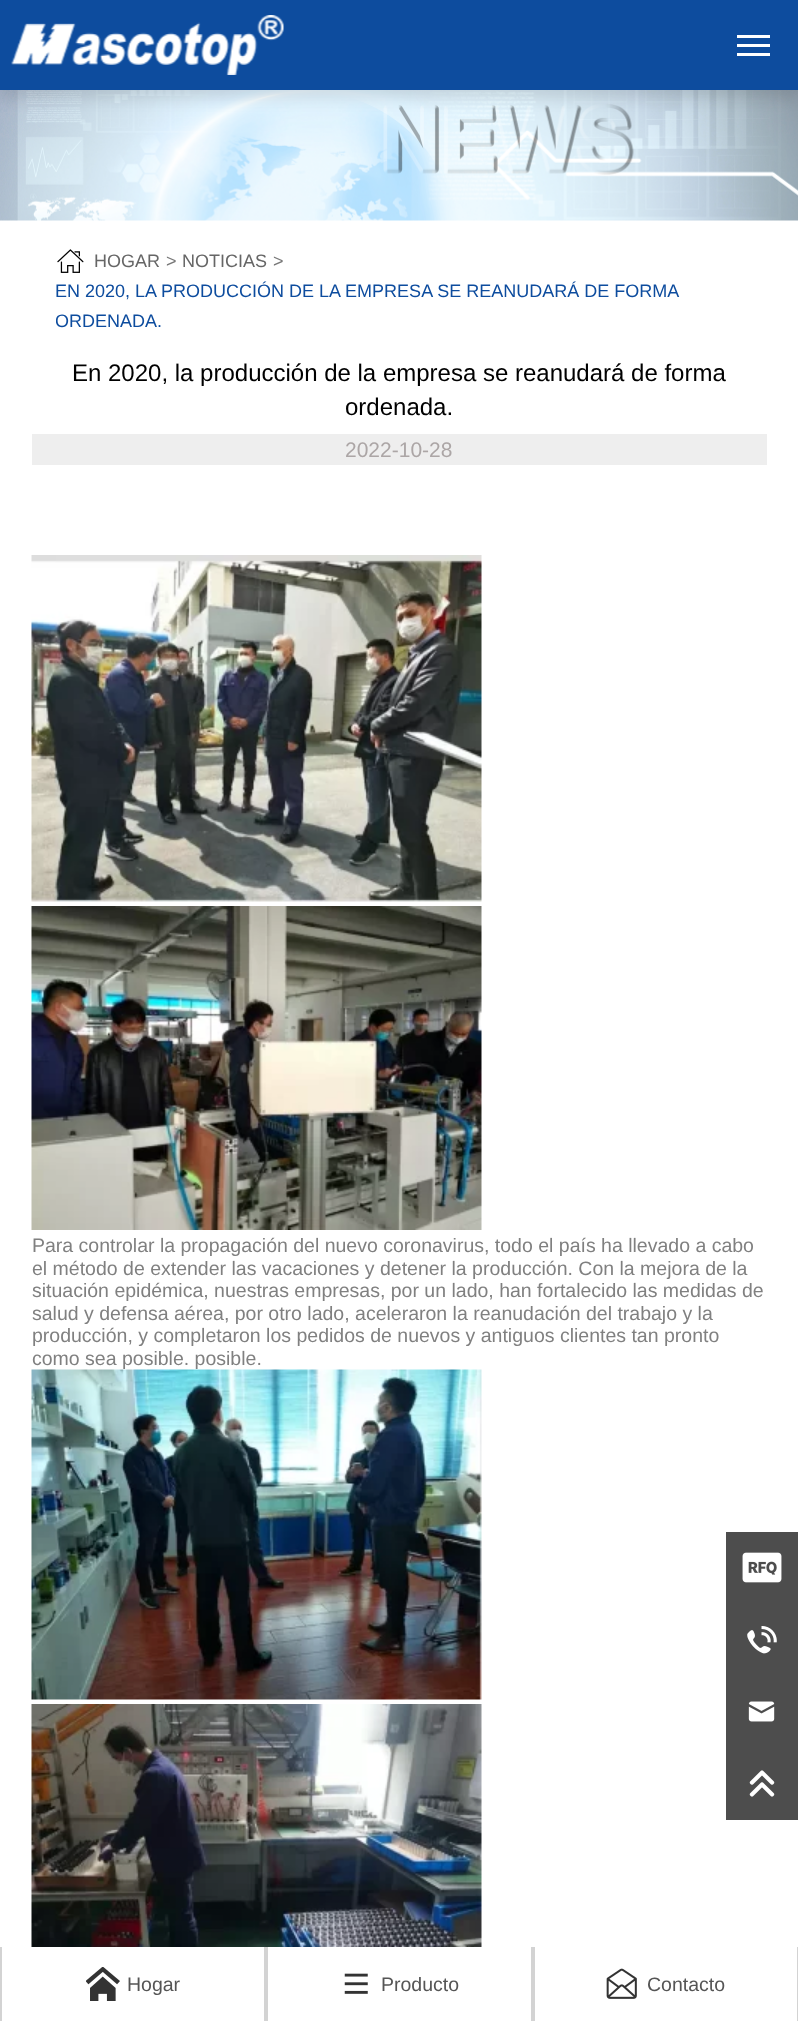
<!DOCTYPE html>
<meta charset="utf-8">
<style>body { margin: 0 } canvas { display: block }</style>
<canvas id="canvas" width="798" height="2021"></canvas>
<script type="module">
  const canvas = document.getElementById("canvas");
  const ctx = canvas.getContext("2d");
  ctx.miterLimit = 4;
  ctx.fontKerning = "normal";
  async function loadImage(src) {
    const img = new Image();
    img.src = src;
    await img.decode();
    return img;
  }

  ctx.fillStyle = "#ffffff";
  ctx.fillRect(0, 0, 798, 2021);
  ctx.drawImage(await loadImage("img2.png"), 0, 90, 798, 131);
  ctx.fillStyle = "rgba(0, 0, 0, 0.1)";
  ctx.filter = "blur(7.5px)";
  ctx.beginPath();
  ctx.rect(0, 8, 798, 90);
  ctx.fill();
  ctx.filter = "none";
  ctx.fillStyle = "#0d4c9e";
  ctx.fillRect(0, 0, 798, 90);
  ctx.drawImage(await loadImage("img1.png"), 11, 15, 273, 60);
  ctx.fillStyle = "#ffffff";
  ctx.fillRect(737, 44, 33, 3);
  ctx.fillRect(737, 35, 33, 3);
  ctx.fillRect(737, 53, 33, 3);
  ctx.drawImage(await loadImage("img3.png"), 57, 249, 27, 24);
  ctx.font = "18px Liberation Sans";
  ctx.fillStyle = "#666666";
  ctx.fillText("HOGAR", 94, 267);
  ctx.fillStyle = "#777777";
  ctx.fillText(">", 166, 267);
  ctx.fillStyle = "#666666";
  ctx.fillText("NOTICIAS", 182, 267);
  ctx.fillStyle = "#777777";
  ctx.fillText(">", 273, 267);
  ctx.fillStyle = "#0d4c9e";
  ctx.fillText("EN 2020, LA PRODUCCIÓN DE LA EMPRESA SE REANUDARÁ DE FORMA", 55, 297);
  ctx.save();
  ctx.beginPath();
  ctx.rect(56, 246, 711, 90);
  ctx.clip();
  ctx.fillText("ORDENADA.", 55, 327);
  ctx.restore();
  ctx.font = "24px Liberation Sans";
  ctx.fillStyle = "#000000";
  ctx.fillText("En 2020, la producción de la empresa se reanudará de forma", 72, 381);
  ctx.fillText("ordenada.", 345, 415);
  ctx.fillStyle = "#eeeeee";
  ctx.fillRect(32, 434, 735, 31);
  ctx.font = "21px Liberation Sans";
  ctx.fillStyle = "#aca6a6";
  ctx.fillText("2022-10-28", 345, 457);
  ctx.drawImage(await loadImage("img4.png"), 31, 555, 451, 347);
  ctx.drawImage(await loadImage("img5.png"), 31, 906, 451, 324);
  ctx.font = "19.5px Liberation Sans";
  ctx.fillStyle = "#808080";
  ctx.fillText("Para controlar la propagación del nuevo coronavirus, todo el país ha llevado a cabo", 32, 1252);
  ctx.fillText("el método de extender las vacaciones y detener la producción. Con la mejora de la", 32, 1275);
  ctx.fillText("situación epidémica, nuestras empresas, por un lado, han fortalecido las medidas de", 32, 1297);
  ctx.fillText("salud y defensa aérea, por otro lado, aceleraron la reanudación del trabajo y la", 32, 1320);
  ctx.fillText("producción, y completaron los pedidos de nuevos y antiguos clientes tan pronto", 32, 1342);
  ctx.fillText("como sea posible. posible.", 32, 1365);
  ctx.drawImage(await loadImage("img6.png"), 31, 1369, 451, 331);
  ctx.drawImage(await loadImage("img7.png"), 31, 1704, 451, 243);
  ctx.fillStyle = "#4d4d4d";
  ctx.fillRect(726, 1532, 72, 288);
  ctx.drawImage(await loadImage("img8.png"), 742, 1552, 40, 31);
  ctx.drawImage(await loadImage("img9.png"), 747, 1626, 30, 28);
  ctx.drawImage(await loadImage("img10.png"), 748, 1701, 27, 21);
  ctx.drawImage(await loadImage("img11.png"), 749, 1770, 26, 27);
  ctx.fillStyle = "#d3d3d3";
  ctx.fillRect(264, 1947, 4, 74);
  ctx.fillRect(0, 1947, 2, 74);
  ctx.drawImage(await loadImage("img12.png"), 86, 1967, 34, 34);
  ctx.fillStyle = "#555555";
  ctx.fillText("Hogar", 127, 1991);
  ctx.fillStyle = "#d3d3d3";
  ctx.fillRect(531, 1947, 4, 74);
  ctx.drawImage(await loadImage("img13.png"), 344, 1973, 24, 21);
  ctx.fillStyle = "#555555";
  ctx.fillText("Producto", 381, 1991);
  ctx.fillStyle = "#d3d3d3";
  ctx.fillRect(797, 1947, 1, 74);
  ctx.drawImage(await loadImage("img14.png"), 606, 1968, 31, 31);
  ctx.fillStyle = "#555555";
  ctx.fillText("Contacto", 647, 1991);
</script>
